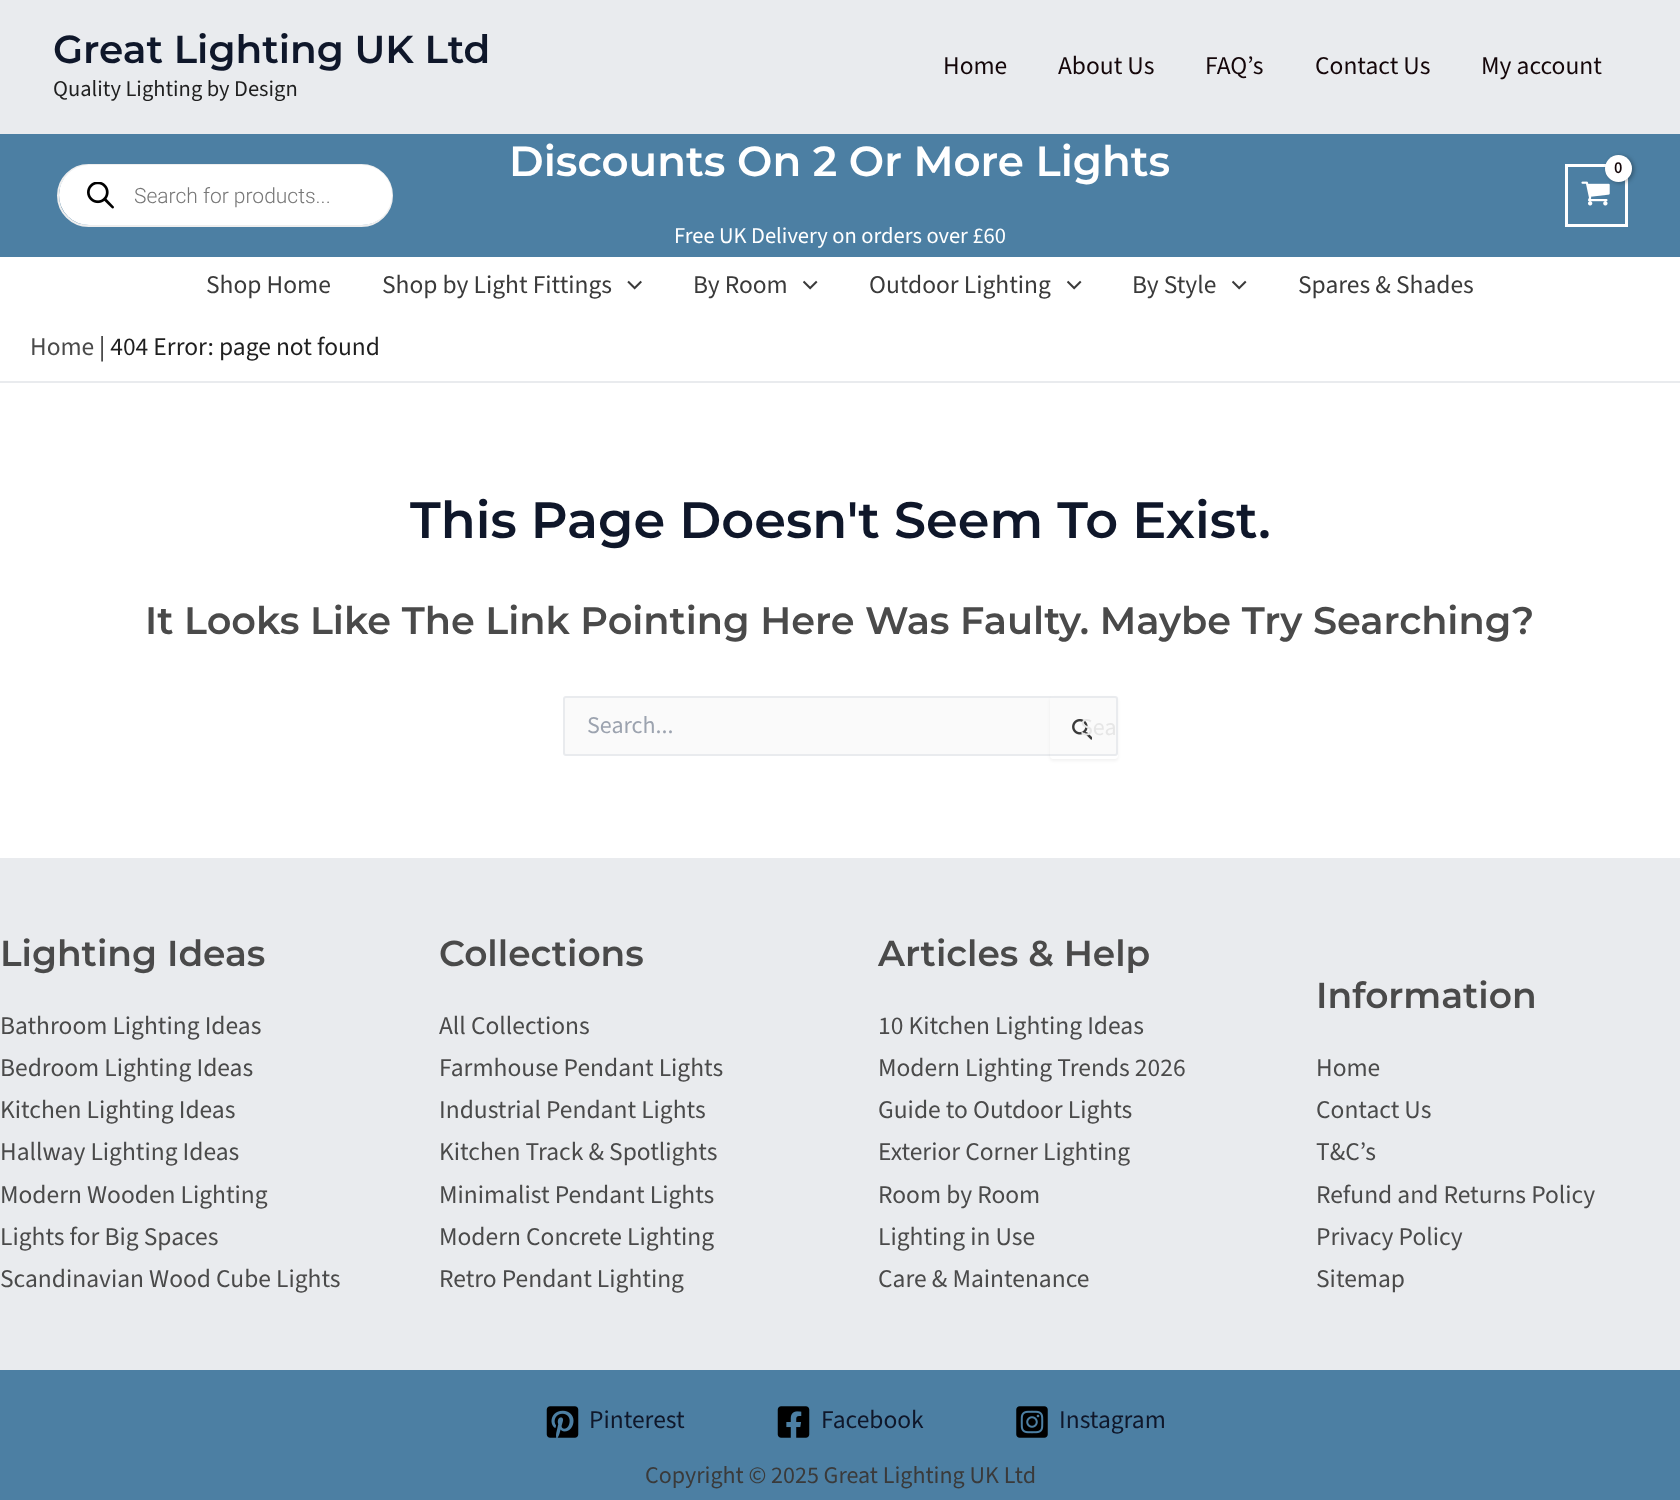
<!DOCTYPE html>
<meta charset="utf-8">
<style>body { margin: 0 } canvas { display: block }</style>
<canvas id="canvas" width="1680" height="1500"></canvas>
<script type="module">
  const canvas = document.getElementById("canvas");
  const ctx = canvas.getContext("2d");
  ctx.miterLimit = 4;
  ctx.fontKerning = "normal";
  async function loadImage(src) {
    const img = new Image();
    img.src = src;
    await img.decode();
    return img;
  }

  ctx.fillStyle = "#ffffff";
  ctx.fillRect(0, 0, 1680, 1500);
  ctx.fillStyle = "#e9ebee";
  ctx.fillRect(0, 0, 1680, 134);
  ctx.font = "100 39px Montserrat";
  ctx.fillStyle = "#0f172a";
  ctx.fillText("Great Lighting UK Ltd", 53, 63);
  ctx.font = "200 22.5px 'Source Sans 3'";
  ctx.fillStyle = "#1f1f1f";
  ctx.fillText("Quality Lighting by Design", 53, 96);
  ctx.font = "200 25.5px 'Source Sans 3'";
  ctx.fillStyle = "#140609";
  ctx.fillText("Home", 943, 74);
  ctx.fillText("About Us", 1058, 74);
  ctx.fillText("FAQ’s", 1205, 74);
  ctx.fillText("Contact Us", 1315, 74);
  ctx.fillText("My account", 1481, 74);
  ctx.fillStyle = "#4c7fa3";
  ctx.fillRect(0, 134, 1680, 123);
  ctx.font = "100 42px Montserrat";
  ctx.fillStyle = "#ffffff";
  ctx.fillText("Discounts On 2 Or More Lights", 509, 176);
  ctx.font = "200 22.5px 'Source Sans 3'";
  ctx.fillText("Free UK Delivery on orders over £60", 674, 243);
  ctx.strokeStyle = "#ffffff";
  ctx.lineWidth = 3;
  ctx.strokeRect(1566.5, 165.5, 60, 60);
  ctx.drawImage(await loadImage("img1.png"), 1581, 181, 29, 25);
  ctx.fillStyle = "rgba(0, 0, 0, 0.3)";
  ctx.filter = "blur(2px)";
  ctx.beginPath();
  ctx.roundRect(1607, 156, 27, 27, 13.5);
  ctx.fill();
  ctx.filter = "none";
  ctx.fillStyle = "#ffffff";
  ctx.beginPath();
  ctx.arc(1618.5, 168.5, 13.5, 0, Math.PI * 2);
  ctx.fill();
  ctx.letterSpacing = "-1px";
  ctx.font = "bold 16px 'Source Sans 3'";
  ctx.fillStyle = "#140609";
  ctx.fillText("0", 1614, 173);
  ctx.beginPath();
  ctx.roundRect(58, 165, 334, 61, 30.5);
  ctx.strokeStyle = "#eeeeee";
  ctx.lineWidth = 2;
  ctx.stroke();
  ctx.fillStyle = "#ffffff";
  ctx.beginPath();
  ctx.roundRect(59, 165, 333, 60, 30);
  ctx.fill();
  ctx.drawImage(await loadImage("img2.png"), 87, 182, 27, 27);
  ctx.letterSpacing = "0px";
  ctx.font = "300 21px Roboto";
  ctx.fillStyle = "#777777";
  ctx.fillText("Search for products...", 134, 203);
  ctx.font = "200 25.5px 'Source Sans 3'";
  ctx.fillStyle = "#3a3a3a";
  ctx.fillText("Shop Home", 206, 293);
  ctx.fillText("Shop by Light Fittings", 382, 293);
  ctx.drawImage(await loadImage("img3.png"), 627, 280, 15, 10);
  ctx.fillText("By Room", 693, 293);
  ctx.drawImage(await loadImage("img4.png"), 803, 280, 15, 10);
  ctx.fillText("Outdoor Lighting", 869, 293);
  ctx.drawImage(await loadImage("img4.png"), 1067, 280, 15, 10);
  ctx.fillText("By Style", 1132, 293);
  ctx.drawImage(await loadImage("img4.png"), 1232, 280, 15, 10);
  ctx.fillText("Spares & Shades", 1298, 293);
  ctx.fillStyle = "#e9ebee";
  ctx.fillRect(0, 381, 1680, 2);
  ctx.fillStyle = "#4a4a4a";
  ctx.fillText("Home", 30, 355);
  ctx.fillStyle = "#1f1f1f";
  ctx.fillText("| 404 Error: page not found", 99, 355);
  ctx.font = "100 51px Montserrat";
  ctx.fillStyle = "#0f172a";
  ctx.fillText("This Page Doesn't Seem To Exist.", 410, 538);
  ctx.font = "100 38.25px Montserrat";
  ctx.fillStyle = "#4a4a4a";
  ctx.fillText("It Looks Like The Link Pointing Here Was Faulty. Maybe Try Searching?", 145, 634);
  ctx.fillStyle = "#fafafa";
  ctx.beginPath();
  ctx.roundRect(564, 697, 553, 58, 2);
  ctx.fill();
  ctx.strokeStyle = "#e9ebee";
  ctx.stroke();
  ctx.font = "200 24px 'Source Sans 3'";
  ctx.fillStyle = "#9ca3af";
  ctx.fillText("Search...", 587, 733);
  ctx.drawImage(await loadImage("img5.png"), 1072, 719, 20, 21);
  ctx.save();
  ctx.beginPath();
  ctx.moveTo(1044, 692);
  ctx.lineTo(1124, 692);
  ctx.lineTo(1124, 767);
  ctx.lineTo(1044, 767);
  ctx.closePath();
  ctx.moveTo(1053, 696);
  ctx.lineTo(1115, 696);
  ctx.bezierCurveTo(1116.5, 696, 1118, 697.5, 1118, 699);
  ctx.lineTo(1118, 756);
  ctx.bezierCurveTo(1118, 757.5, 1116.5, 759, 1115, 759);
  ctx.lineTo(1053, 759);
  ctx.bezierCurveTo(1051.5, 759, 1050, 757.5, 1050, 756);
  ctx.lineTo(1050, 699);
  ctx.bezierCurveTo(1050, 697.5, 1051.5, 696, 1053, 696);
  ctx.closePath();
  ctx.clip("evenodd");
  ctx.fillStyle = "rgba(0, 0, 0, 0.05)";
  ctx.filter = "blur(1.5px)";
  ctx.beginPath();
  ctx.roundRect(1050, 698, 68, 63, 3);
  ctx.fill();
  ctx.filter = "none";
  ctx.restore();
  ctx.fillStyle = "#e6e6e6";
  ctx.fillText("Sea", 1080, 735);
  ctx.fillStyle = "#e9ebee";
  ctx.fillRect(0, 858, 1680, 512);
  ctx.font = "100 36px Montserrat";
  ctx.fillStyle = "#4a4a4a";
  ctx.fillText("Lighting Ideas", 0, 966);
  ctx.font = "200 25.5px 'Source Sans 3'";
  ctx.fillText("Bathroom Lighting Ideas", 0, 1034);
  ctx.fillText("Bedroom Lighting Ideas", 0, 1076);
  ctx.fillText("Kitchen Lighting Ideas", 0, 1118);
  ctx.fillText("Hallway Lighting Ideas", 0, 1160);
  ctx.fillText("Modern Wooden Lighting", 0, 1203);
  ctx.fillText("Lights for Big Spaces", 0, 1245);
  ctx.fillText("Scandinavian Wood Cube Lights", 0, 1287);
  ctx.font = "100 36px Montserrat";
  ctx.fillText("Collections", 439, 966);
  ctx.font = "200 25.5px 'Source Sans 3'";
  ctx.fillText("All Collections", 439, 1034);
  ctx.fillText("Farmhouse Pendant Lights", 439, 1076);
  ctx.fillText("Industrial Pendant Lights", 439, 1118);
  ctx.fillText("Kitchen Track & Spotlights", 439, 1160);
  ctx.fillText("Minimalist Pendant Lights", 439, 1203);
  ctx.fillText("Modern Concrete Lighting", 439, 1245);
  ctx.fillText("Retro Pendant Lighting", 439, 1287);
  ctx.font = "100 36px Montserrat";
  ctx.fillText("Articles & Help", 878, 966);
  ctx.font = "200 25.5px 'Source Sans 3'";
  ctx.fillText("10 Kitchen Lighting Ideas", 878, 1034);
  ctx.fillText("Modern Lighting Trends 2026", 878, 1076);
  ctx.fillText("Guide to Outdoor Lights", 878, 1118);
  ctx.fillText("Exterior Corner Lighting", 878, 1160);
  ctx.fillText("Room by Room", 878, 1203);
  ctx.fillText("Lighting in Use", 878, 1245);
  ctx.fillText("Care & Maintenance", 878, 1287);
  ctx.font = "100 36px Montserrat";
  ctx.fillText("Information", 1316, 1008);
  ctx.font = "200 25.5px 'Source Sans 3'";
  ctx.fillText("Home", 1316, 1076);
  ctx.fillText("Contact Us", 1316, 1118);
  ctx.fillText("T&C’s", 1316, 1160);
  ctx.fillText("Refund and Returns Policy", 1316, 1203);
  ctx.fillText("Privacy Policy", 1316, 1245);
  ctx.fillText("Sitemap", 1316, 1287);
  ctx.fillStyle = "#4c7fa3";
  ctx.fillRect(0, 1370, 1680, 130);
  ctx.drawImage(await loadImage("img6.png"), 546, 1406, 33, 32);
  ctx.fillStyle = "#0f172a";
  ctx.fillText("Pinterest", 589, 1428);
  ctx.drawImage(await loadImage("img7.png"), 777, 1406, 33, 32);
  ctx.fillText("Facebook", 821, 1428);
  ctx.drawImage(await loadImage("img8.png"), 1016, 1406, 32, 32);
  ctx.fillText("Instagram", 1059, 1428);
  ctx.font = "200 24px 'Source Sans 3'";
  ctx.fillStyle = "#3a3a3a";
  ctx.fillText("Copyright © 2025 Great Lighting UK Ltd", 645, 1483);
</script>
